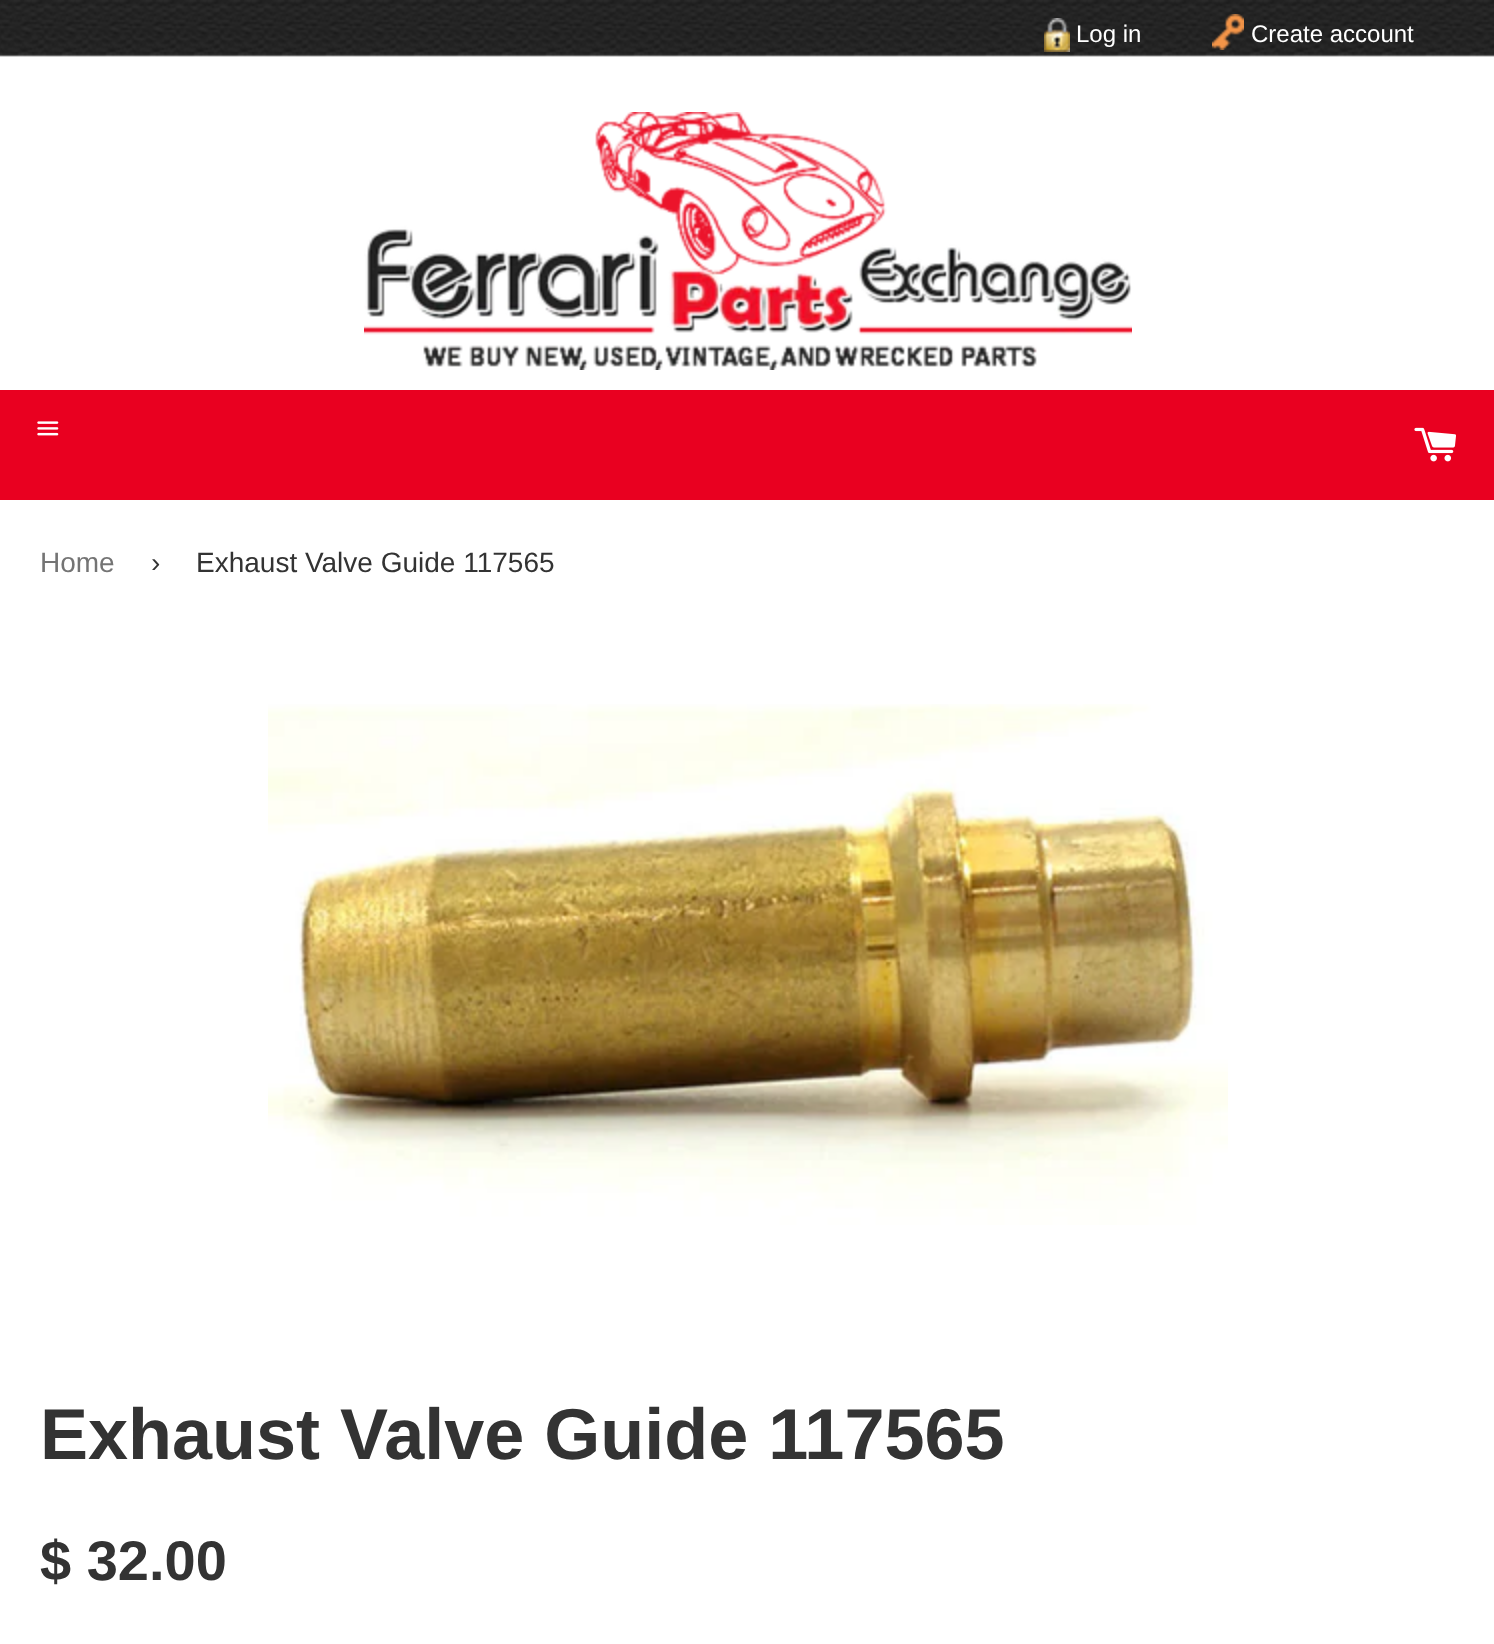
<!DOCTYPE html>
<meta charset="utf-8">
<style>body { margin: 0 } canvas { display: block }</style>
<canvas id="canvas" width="1494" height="1644"></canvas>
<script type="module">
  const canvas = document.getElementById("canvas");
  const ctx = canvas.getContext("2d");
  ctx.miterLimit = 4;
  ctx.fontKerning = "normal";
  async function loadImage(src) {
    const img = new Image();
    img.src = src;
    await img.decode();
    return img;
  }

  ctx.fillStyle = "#ffffff";
  ctx.fillRect(0, 0, 1494, 1644);
  ctx.drawImage(await loadImage("img1.png"), 0, 0, 1494, 57);
  ctx.drawImage(await loadImage("img2.png"), 1044, 18, 26, 34);
  ctx.font = "24px Liberation Sans";
  ctx.fillText("Log in", 1076, 42);
  ctx.drawImage(await loadImage("img3.png"), 1212, 14, 32, 36);
  ctx.fillText("Create account", 1251, 42);
  ctx.drawImage(await loadImage("img4.png"), 364, 112, 768, 258);
  ctx.fillStyle = "#e90020";
  ctx.fillRect(0, 390, 1494, 110);
  ctx.drawImage(await loadImage("img5.png"), 37, 421, 22, 15);
  ctx.drawImage(await loadImage("img6.png"), 1414, 427, 42, 35);
  ctx.font = "28px Liberation Sans";
  ctx.fillStyle = "#747474";
  ctx.fillText("Home", 40, 572);
  ctx.fillStyle = "#333333";
  ctx.fillText("›", 151, 572);
  ctx.fillText("Exhaust Valve Guide 117565", 196, 572);
  ctx.drawImage(await loadImage("img7.png"), 268, 704, 960, 521);
  ctx.font = "bold 72px Liberation Sans";
  ctx.fillText("Exhaust Valve Guide 117565", 40, 1459);
  ctx.font = "bold 56px Liberation Sans";
  ctx.fillText("$ 32.00", 40, 1580);
</script>
